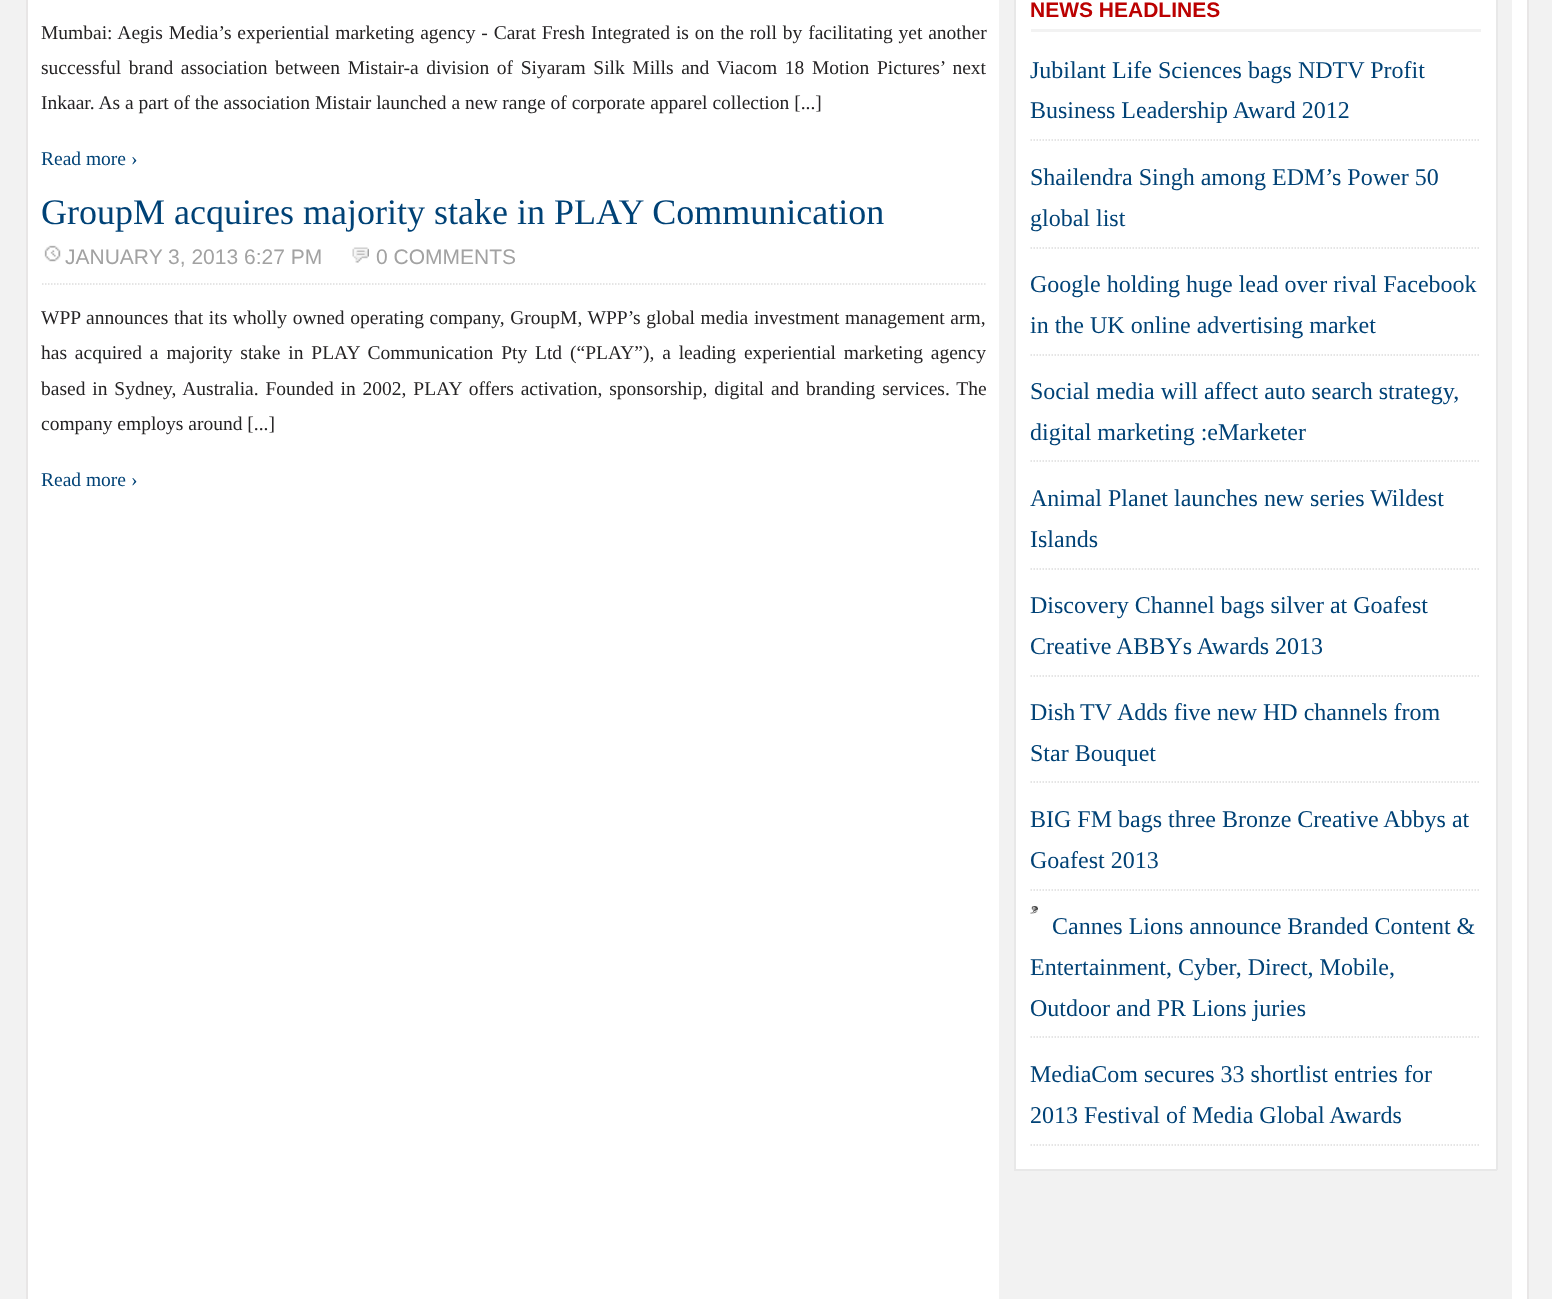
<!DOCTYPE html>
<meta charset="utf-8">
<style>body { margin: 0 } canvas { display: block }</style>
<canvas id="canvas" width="1552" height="1299"></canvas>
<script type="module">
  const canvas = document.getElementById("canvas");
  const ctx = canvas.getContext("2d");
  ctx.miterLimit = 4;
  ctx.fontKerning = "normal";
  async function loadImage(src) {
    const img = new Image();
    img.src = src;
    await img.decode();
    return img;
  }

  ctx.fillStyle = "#f2f2f2";
  ctx.fillRect(0, 0, 1552, 1299);
  ctx.fillStyle = "#ffffff";
  ctx.fillRect(28, 0, 1499, 1299);
  ctx.fillStyle = "#e8e6e6";
  ctx.fillRect(1527, 0, 2, 1299);
  ctx.fillRect(26, 0, 2, 1299);
  ctx.wordSpacing = "1px";
  ctx.font = "19.5px Liberation Serif";
  ctx.fillStyle = "#252324";
  ctx.fillText("Mumbai: Aegis Media’s experiential marketing agency - Carat Fresh Integrated is on the roll by facilitating yet another", 41, 39);
  ctx.wordSpacing = "2.75px";
  ctx.fillText("successful brand association between Mistair-a division of Siyaram Silk Mills and Viacom 18 Motion Pictures’ next", 41, 74);
  ctx.wordSpacing = "0px";
  ctx.fillText("Inkaar. As a part of the association Mistair launched a new range of corporate apparel collection [...]", 41, 109);
  ctx.fillStyle = "#004276";
  ctx.fillText("Read more ›", 41, 165);
  ctx.font = "36px Liberation Serif";
  ctx.fillText("GroupM acquires majority stake in PLAY Communication", 41, 224);
  ctx.beginPath();
  ctx.moveTo(42, 284);
  ctx.lineTo(987, 284);
  ctx.strokeStyle = "#dddddd";
  ctx.lineWidth = 1.5;
  ctx.setLineDash([1.5, 1.5]);
  ctx.stroke();
  ctx.drawImage(await loadImage("img1.png"), 44, 245, 17, 17);
  ctx.font = "21px Liberation Sans";
  ctx.fillStyle = "#a2a2a2";
  ctx.fillText("JANUARY 3, 2013 6:27 PM", 65, 264);
  ctx.drawImage(await loadImage("img2.png"), 352, 247, 17, 16);
  ctx.fillText("0 COMMENTS", 376, 264);
  ctx.wordSpacing = "0.75px";
  ctx.font = "19.5px Liberation Serif";
  ctx.fillStyle = "#252324";
  ctx.fillText("WPP announces that its wholly owned operating company, GroupM, WPP’s global media investment management arm,", 41, 324);
  ctx.wordSpacing = "3px";
  ctx.fillText("has acquired a majority stake in PLAY Communication Pty Ltd (“PLAY”), a leading experiential marketing agency", 41, 359);
  ctx.wordSpacing = "2px";
  ctx.fillText("based in Sydney, Australia. Founded in 2002, PLAY offers activation, sponsorship, digital and branding services. The", 41, 395);
  ctx.wordSpacing = "0px";
  ctx.fillText("company employs around [...]", 41, 430);
  ctx.fillStyle = "#004276";
  ctx.fillText("Read more ›", 41, 486);
  ctx.fillStyle = "#f2f2f2";
  ctx.fillRect(999, 0, 513, 1299);
  ctx.fillStyle = "#ffffff";
  ctx.fillRect(1016, 0, 480, 1169);
  ctx.fillStyle = "#e8e8e8";
  ctx.fillRect(1496, 0, 2, 1170);
  ctx.fillRect(1014, 1169, 483, 2);
  ctx.fillRect(1014, 0, 2, 1170);
  ctx.fillStyle = "#f2f2f2";
  ctx.fillRect(1031, 29, 450, 3);
  ctx.font = "bold 21px Liberation Sans";
  ctx.fillStyle = "#bb0101";
  ctx.fillText("NEWS HEADLINES", 1030, 17);
  ctx.beginPath();
  ctx.moveTo(1030.5, 140);
  ctx.lineTo(1480.5, 140);
  ctx.stroke();
  ctx.font = "24px Liberation Serif";
  ctx.fillStyle = "#004276";
  ctx.fillText("Jubilant Life Sciences bags NDTV Profit", 1030, 78);
  ctx.fillText("Business Leadership Award 2012", 1030, 118);
  ctx.beginPath();
  ctx.moveTo(1030.5, 248);
  ctx.lineTo(1480.5, 248);
  ctx.stroke();
  ctx.fillText("Shailendra Singh among EDM’s Power 50", 1030, 185);
  ctx.fillText("global list", 1030, 226);
  ctx.beginPath();
  ctx.moveTo(1030.5, 355);
  ctx.lineTo(1480.5, 355);
  ctx.stroke();
  ctx.fillText("Google holding huge lead over rival Facebook", 1030, 292);
  ctx.fillText("in the UK online advertising market", 1030, 333);
  ctx.beginPath();
  ctx.moveTo(1030.5, 461);
  ctx.lineTo(1480.5, 461);
  ctx.stroke();
  ctx.fillText("Social media will affect auto search strategy,", 1030, 399);
  ctx.fillText("digital marketing :eMarketer", 1030, 440);
  ctx.beginPath();
  ctx.moveTo(1030.5, 569);
  ctx.lineTo(1480.5, 569);
  ctx.stroke();
  ctx.fillText("Animal Planet launches new series Wildest", 1030, 506);
  ctx.fillText("Islands", 1030, 547);
  ctx.beginPath();
  ctx.moveTo(1030.5, 676);
  ctx.lineTo(1480.5, 676);
  ctx.stroke();
  ctx.fillText("Discovery Channel bags silver at Goafest", 1030, 613);
  ctx.fillText("Creative ABBYs Awards 2013", 1030, 654);
  ctx.beginPath();
  ctx.moveTo(1030.5, 782);
  ctx.lineTo(1480.5, 782);
  ctx.stroke();
  ctx.wordSpacing = "-1px";
  ctx.fillText("Dish TV", 1030, 720);
  ctx.wordSpacing = "0px";
  ctx.fillText("Adds five new HD channels from", 1117, 720);
  ctx.fillText("Star Bouquet", 1030, 761);
  ctx.beginPath();
  ctx.moveTo(1030.5, 890);
  ctx.lineTo(1480.5, 890);
  ctx.stroke();
  ctx.fillText("BIG FM bags three Bronze Creative Abbys at", 1030, 827);
  ctx.fillText("Goafest 2013", 1030, 868);
  ctx.beginPath();
  ctx.moveTo(1030.5, 1037);
  ctx.lineTo(1480.5, 1037);
  ctx.stroke();
  ctx.drawImage(await loadImage("img3.png"), 1030, 906, 8, 8);
  ctx.fillText("Cannes Lions announce Branded Content &", 1052, 934);
  ctx.fillText("Entertainment, Cyber, Direct, Mobile,", 1030, 975);
  ctx.fillText("Outdoor and PR Lions juries", 1030, 1016);
  ctx.beginPath();
  ctx.moveTo(1030.5, 1145);
  ctx.lineTo(1480.5, 1145);
  ctx.stroke();
  ctx.fillText("MediaCom secures 33 shortlist entries for", 1030, 1082);
  ctx.fillText("2013 Festival of Media Global Awards", 1030, 1123);
</script>
